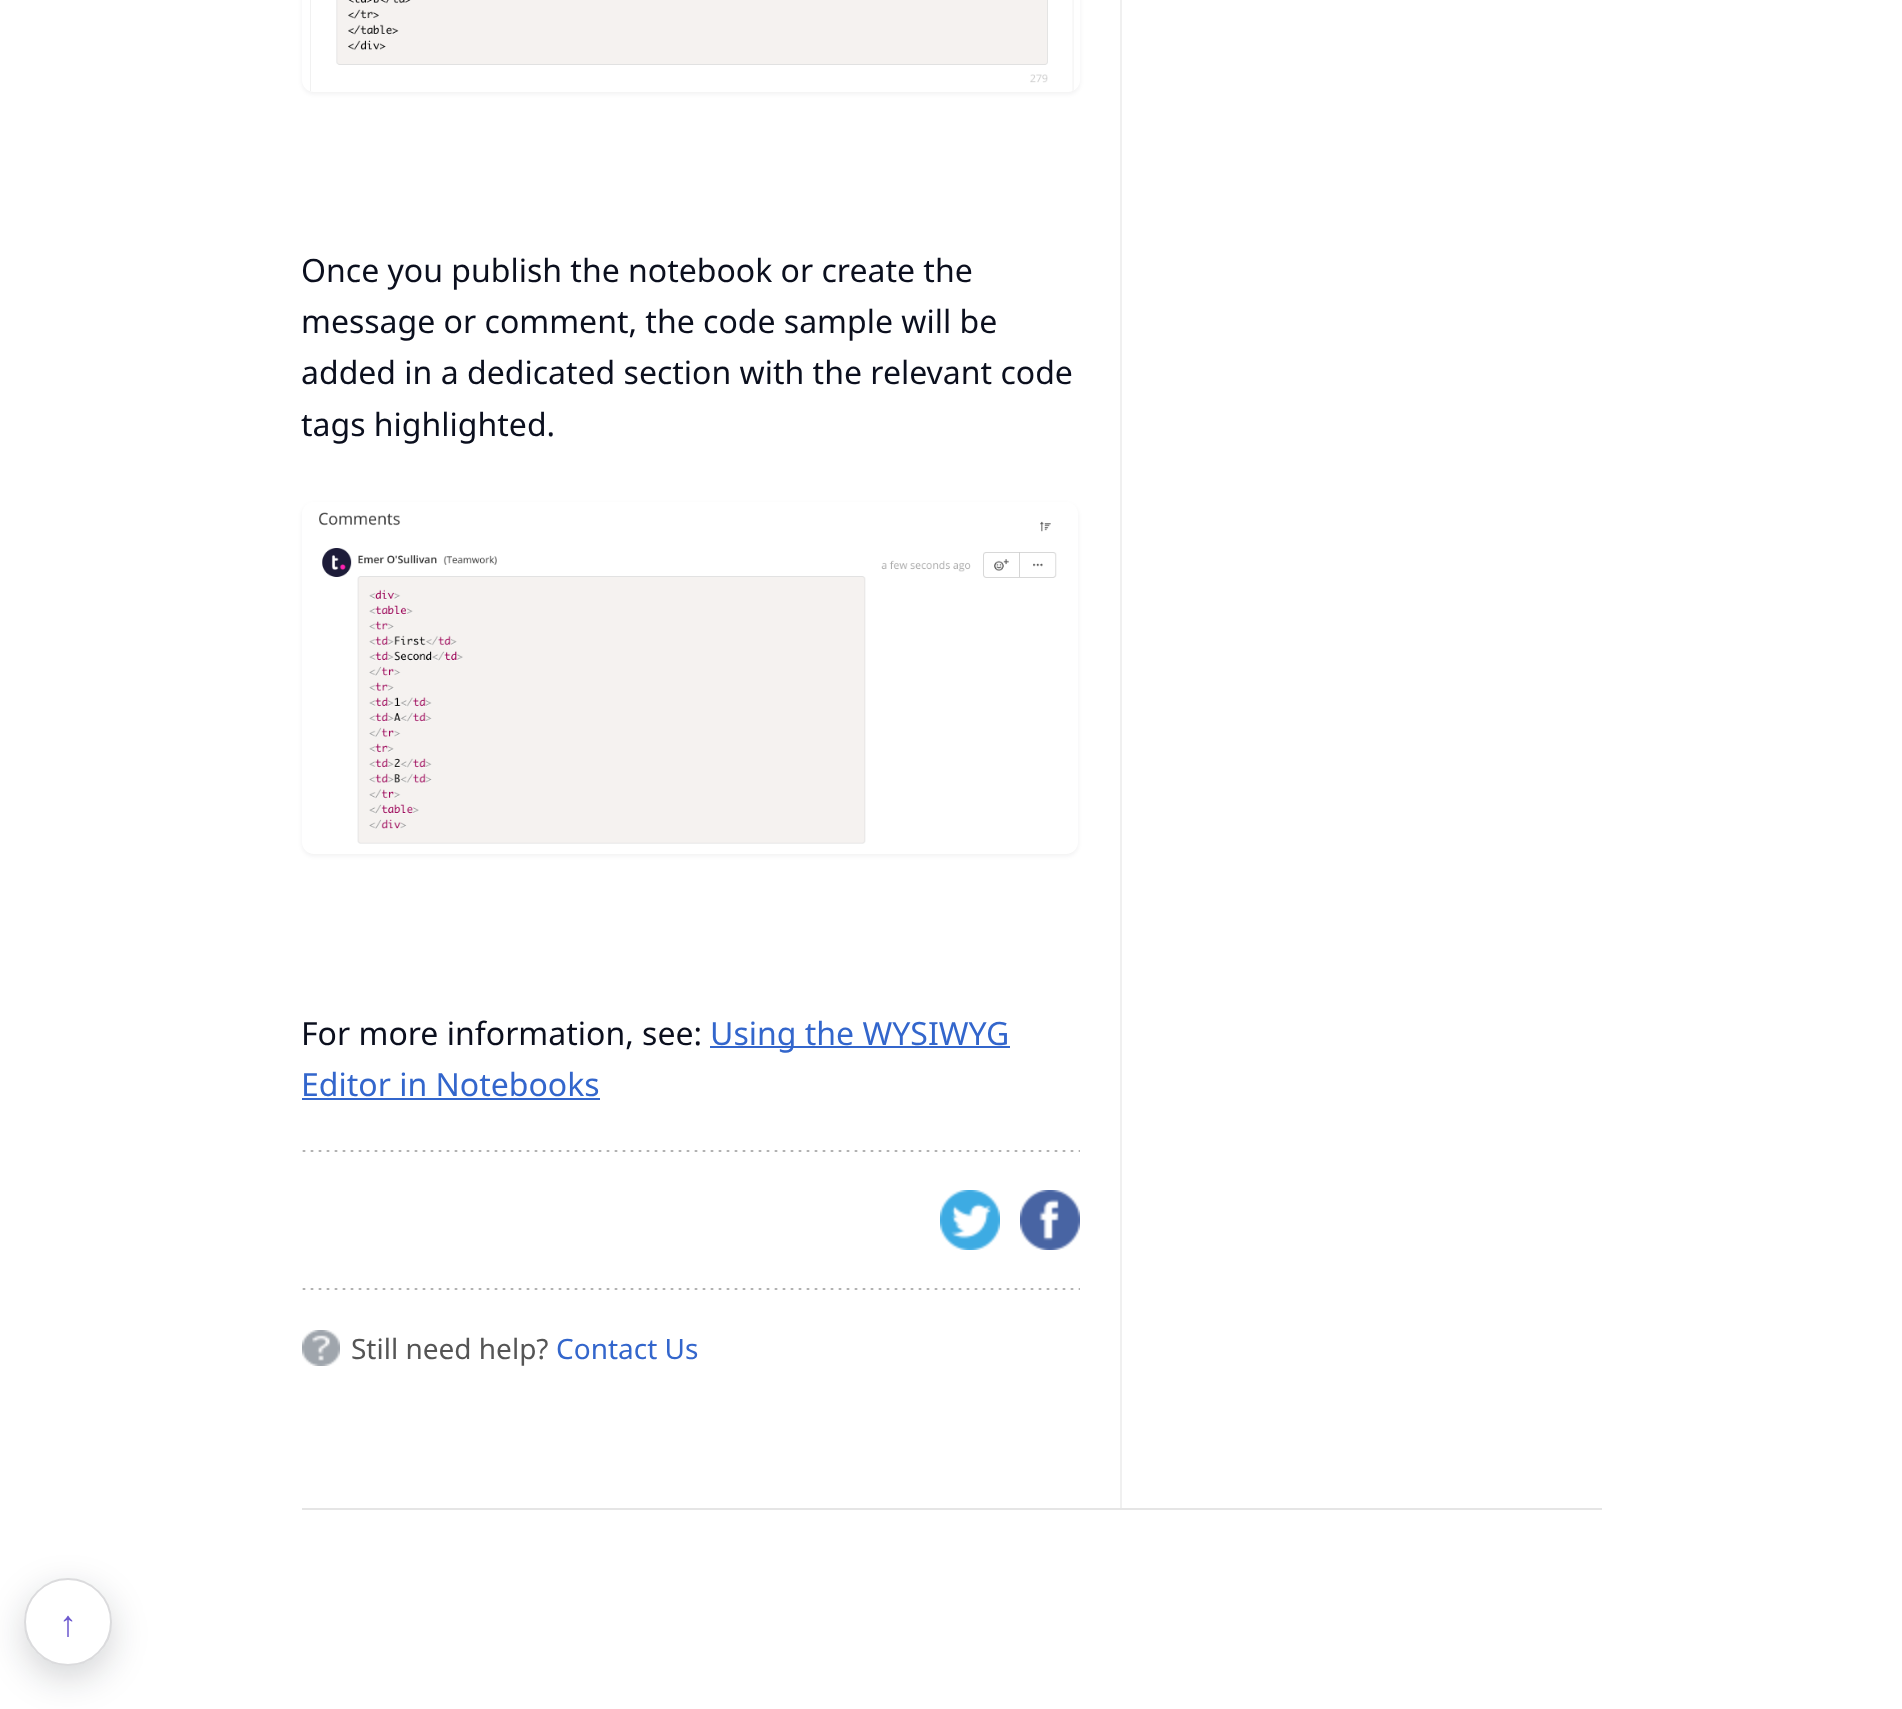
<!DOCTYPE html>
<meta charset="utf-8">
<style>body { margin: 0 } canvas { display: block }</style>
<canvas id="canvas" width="1902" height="1709"></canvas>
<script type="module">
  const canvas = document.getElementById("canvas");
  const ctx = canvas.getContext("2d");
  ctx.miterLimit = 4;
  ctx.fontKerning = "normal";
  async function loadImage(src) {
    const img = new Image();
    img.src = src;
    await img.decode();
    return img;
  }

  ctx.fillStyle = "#ffffff";
  ctx.fillRect(0, 0, 1902, 1709);
  ctx.fillStyle = "#e5e5e5";
  ctx.fillRect(302, 1508, 1300, 2);
  ctx.fillStyle = "#f0f0f0";
  ctx.fillRect(1120, 0, 2, 1508);
  ctx.save();
  ctx.beginPath();
  ctx.moveTo(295, 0);
  ctx.lineTo(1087, 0);
  ctx.lineTo(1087, 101);
  ctx.lineTo(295, 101);
  ctx.closePath();
  ctx.moveTo(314, -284);
  ctx.lineTo(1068, -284);
  ctx.bezierCurveTo(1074.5, -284, 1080, -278.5, 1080, -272);
  ctx.lineTo(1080, 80);
  ctx.bezierCurveTo(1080, 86.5, 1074.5, 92, 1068, 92);
  ctx.lineTo(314, 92);
  ctx.bezierCurveTo(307.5, 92, 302, 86.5, 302, 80);
  ctx.lineTo(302, -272);
  ctx.bezierCurveTo(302, -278.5, 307.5, -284, 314, -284);
  ctx.closePath();
  ctx.clip("evenodd");
  ctx.fillStyle = "rgba(11, 15, 30, 0.06)";
  ctx.filter = "blur(2px)";
  ctx.beginPath();
  ctx.roundRect(302, -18, 778, 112, 12);
  ctx.fill();
  ctx.filter = "none";
  ctx.restore();
  ctx.drawImage(await loadImage("img1.png"), 310, 0, 764, 91);
  ctx.font = "32px Noto Sans";
  ctx.fillStyle = "#0b0f1e";
  ctx.fillText("Once you publish the notebook or create the", 301, 282);
  ctx.fillText("message or comment, the code sample will be", 301, 333);
  ctx.fillText("added in a dedicated section with the relevant code", 301, 384);
  ctx.fillText("tags highlighted.", 301, 436);
  ctx.save();
  ctx.beginPath();
  ctx.moveTo(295, 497);
  ctx.lineTo(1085, 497);
  ctx.lineTo(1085, 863);
  ctx.lineTo(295, 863);
  ctx.closePath();
  ctx.moveTo(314, 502);
  ctx.lineTo(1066, 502);
  ctx.bezierCurveTo(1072.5, 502, 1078, 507.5, 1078, 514);
  ctx.lineTo(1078, 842);
  ctx.bezierCurveTo(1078, 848.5, 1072.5, 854, 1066, 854);
  ctx.lineTo(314, 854);
  ctx.bezierCurveTo(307.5, 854, 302, 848.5, 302, 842);
  ctx.lineTo(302, 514);
  ctx.bezierCurveTo(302, 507.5, 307.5, 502, 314, 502);
  ctx.closePath();
  ctx.clip("evenodd");
  ctx.fillStyle = "rgba(11, 15, 30, 0.06)";
  ctx.filter = "blur(2px)";
  ctx.beginPath();
  ctx.roundRect(302, 504, 776, 352, 12);
  ctx.fill();
  ctx.filter = "none";
  ctx.restore();
  ctx.drawImage(await loadImage("img2.png"), 319, 512, 738, 332);
  ctx.fillText("For more information, see:", 301, 1045);
  ctx.fillStyle = "#3366cc";
  ctx.fillRect(710, 1046, 300, 2);
  ctx.fillText("Using the WYSIWYG", 710, 1045);
  ctx.fillText("Editor in Notebooks", 301, 1096);
  ctx.fillRect(302, 1098, 298, 2);
  ctx.drawImage(await loadImage("img3.png"), 302, 1150, 778, 2);
  ctx.drawImage(await loadImage("img3.png"), 302, 1288, 778, 2);
  ctx.drawImage(await loadImage("img4.png"), 940, 1190, 60, 60);
  ctx.drawImage(await loadImage("img5.png"), 1020, 1190, 60, 60);
  ctx.drawImage(await loadImage("img6.png"), 302, 1330, 38, 36);
  ctx.font = "28px Noto Sans";
  ctx.fillStyle = "#555555";
  ctx.fillText("Still need help?", 351, 1359);
  ctx.fillStyle = "#3366cc";
  ctx.fillText("Contact Us", 556, 1359);
  ctx.fillStyle = "rgba(11, 15, 30, 0.18)";
  ctx.filter = "blur(18px)";
  ctx.beginPath();
  ctx.roundRect(24, 1590, 88, 88, 44);
  ctx.fill();
  ctx.filter = "none";
  ctx.fillStyle = "#ffffff";
  ctx.beginPath();
  ctx.arc(68, 1622, 44, 0, Math.PI * 2);
  ctx.fill();
  ctx.beginPath();
  ctx.arc(68, 1622, 43, 0, Math.PI * 2);
  ctx.strokeStyle = "rgba(11, 15, 30, 0.15)";
  ctx.lineWidth = 2;
  ctx.stroke();
  ctx.font = "bold 36px Liberation Sans";
  ctx.fillStyle = "#6e5acf";
  ctx.fillText("↑", 59, 1636);
</script>
